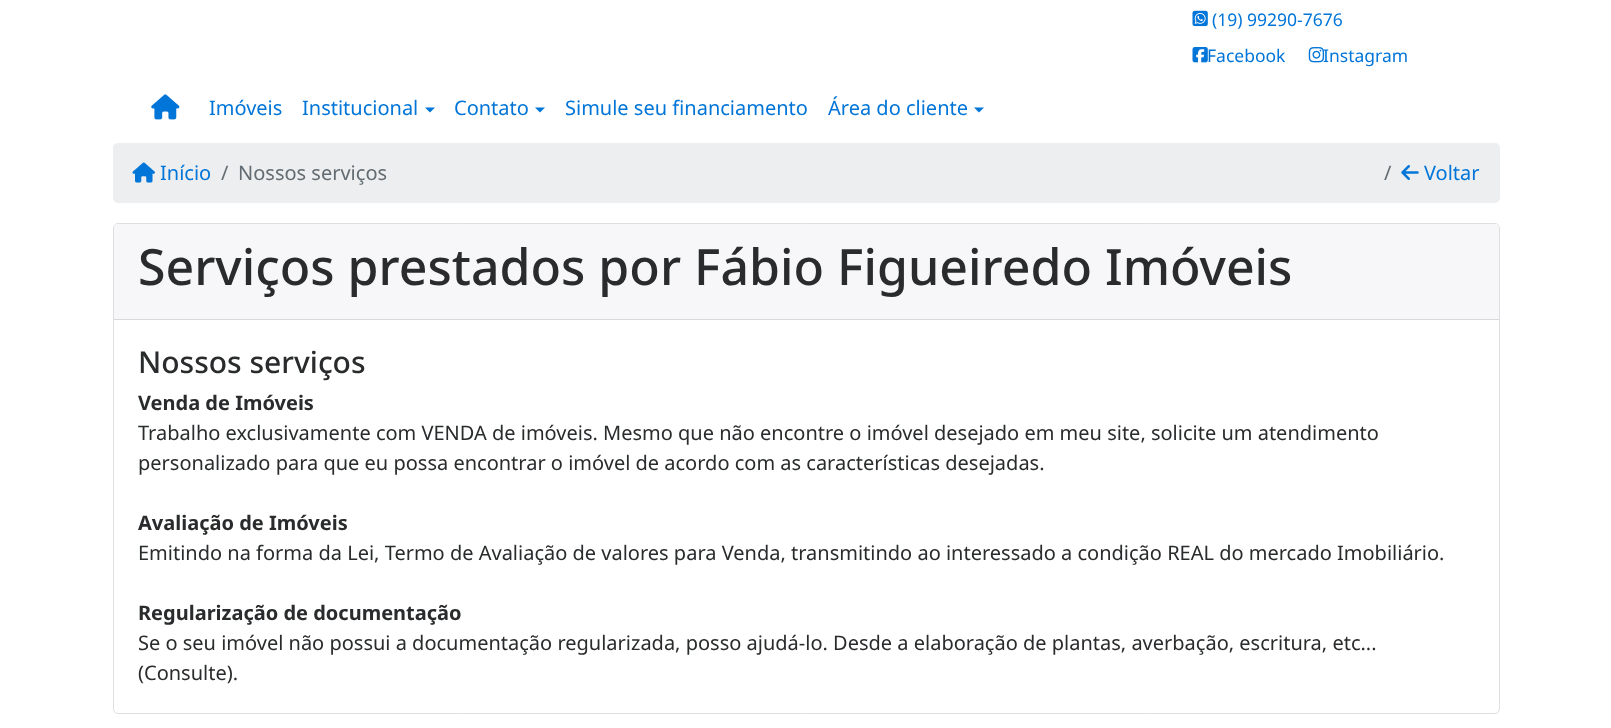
<!DOCTYPE html>
<meta charset="utf-8">
<style>body { margin: 0 } canvas { display: block }</style>
<canvas id="canvas" width="1611" height="728"></canvas>
<script type="module">
  const canvas = document.getElementById("canvas");
  const ctx = canvas.getContext("2d");
  ctx.miterLimit = 4;
  ctx.fontKerning = "normal";
  async function loadImage(src) {
    const img = new Image();
    img.src = src;
    await img.decode();
    return img;
  }

  ctx.fillStyle = "#ffffff";
  ctx.fillRect(0, 0, 1611, 728);
  ctx.drawImage(await loadImage("img1.png"), 1192, 10, 16, 17);
  ctx.font = "17.5px Noto Sans";
  ctx.fillStyle = "#0275d8";
  ctx.fillText("(19) 99290-7676", 1212, 26);
  ctx.drawImage(await loadImage("img2.png"), 1192, 47, 16, 16);
  ctx.fillText("Facebook", 1207, 62);
  ctx.drawImage(await loadImage("img3.png"), 1308, 47, 17, 16);
  ctx.fillText("Instagram", 1323, 62);
  ctx.drawImage(await loadImage("img4.png"), 151, 94, 29, 26);
  ctx.font = "20px Noto Sans";
  ctx.fillText("Imóveis", 209, 115);
  ctx.fillText("Institucional", 302, 115);
  ctx.beginPath();
  ctx.moveTo(425, 107.5);
  ctx.lineTo(435, 107.5);
  ctx.lineTo(430, 112.5);
  ctx.closePath();
  ctx.fill();
  ctx.fillText("Contato", 454, 115);
  ctx.beginPath();
  ctx.moveTo(535, 107.5);
  ctx.lineTo(545, 107.5);
  ctx.lineTo(540, 112.5);
  ctx.closePath();
  ctx.fill();
  ctx.fillText("Simule seu financiamento", 565, 115);
  ctx.fillText("Área do cliente", 828, 115);
  ctx.beginPath();
  ctx.moveTo(974, 107.5);
  ctx.lineTo(984, 107.5);
  ctx.lineTo(979, 112.5);
  ctx.closePath();
  ctx.fill();
  ctx.fillStyle = "#eceeef";
  ctx.beginPath();
  ctx.roundRect(113, 143, 1387, 60, 5);
  ctx.fill();
  ctx.drawImage(await loadImage("img5.png"), 132, 162, 23, 21);
  ctx.fillStyle = "#0275d8";
  ctx.fillText("Início", 160, 180);
  ctx.fillStyle = "#636c72";
  ctx.fillText("/", 221, 180);
  ctx.fillText("Nossos serviços", 238, 180);
  ctx.fillText("/", 1384, 180);
  ctx.drawImage(await loadImage("img6.png"), 1401, 165, 18, 15);
  ctx.fillStyle = "#0275d8";
  ctx.fillText("Voltar", 1424, 180);
  ctx.beginPath();
  ctx.roundRect(113.5, 223.5, 1386, 490, 4.5);
  ctx.strokeStyle = "#dfdfdf";
  ctx.stroke();
  ctx.fillStyle = "#f7f7f9";
  ctx.beginPath();
  ctx.roundRect(114, 224, 1385, 96, [4, 4, 0, 0]);
  ctx.fill();
  ctx.fillStyle = "#d8d8da";
  ctx.fillRect(114, 319, 1385, 1);
  ctx.font = "500 50px Noto Sans";
  ctx.fillStyle = "#292b2c";
  ctx.fillText("Serviços prestados por Fábio Figueiredo Imóveis", 138, 285);
  ctx.font = "500 30px Noto Sans";
  ctx.fillText("Nossos serviços", 138, 373);
  ctx.font = "bold 20px Noto Sans";
  ctx.fillText("Venda de Imóveis", 138, 410);
  ctx.font = "20px Noto Sans";
  ctx.fillText("Trabalho exclusivamente com VENDA de imóveis. Mesmo que não encontre o imóvel desejado em meu site, solicite um atendimento", 138, 440);
  ctx.fillText("personalizado para que eu possa encontrar o imóvel de acordo com as características desejadas.", 138, 470);
  ctx.font = "bold 20px Noto Sans";
  ctx.fillText("Avaliação de Imóveis", 138, 530);
  ctx.font = "20px Noto Sans";
  ctx.fillText("Emitindo na forma da Lei, Termo de Avaliação de valores para Venda, transmitindo ao interessado a condição REAL do mercado Imobiliário.", 138, 560);
  ctx.font = "bold 20px Noto Sans";
  ctx.fillText("Regularização de documentação", 138, 620);
  ctx.font = "20px Noto Sans";
  ctx.fillText("Se o seu imóvel não possui a documentação regularizada, posso ajudá-lo. Desde a elaboração de plantas, averbação, escritura, etc...", 138, 650);
  ctx.fillText("(Consulte).", 138, 680);
</script>
